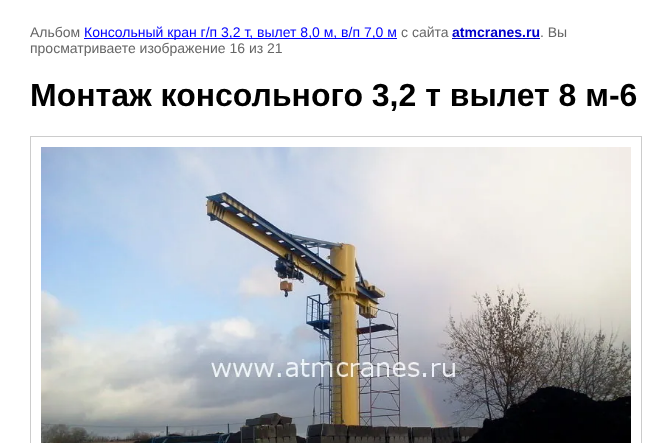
<!DOCTYPE html>
<meta charset="utf-8">
<style>body { margin: 0 } canvas { display: block }</style>
<canvas id="canvas" width="672" height="443"></canvas>
<script type="module">
  const canvas = document.getElementById("canvas");
  const ctx = canvas.getContext("2d");
  ctx.miterLimit = 4;
  ctx.fontKerning = "normal";
  async function loadImage(src) {
    const img = new Image();
    img.src = src;
    await img.decode();
    return img;
  }

  ctx.fillStyle = "#ffffff";
  ctx.fillRect(0, 0, 672, 443);
  ctx.font = "14px Liberation Sans";
  ctx.fillStyle = "#666666";
  ctx.fillText("Альбом", 30, 37);
  ctx.fillStyle = "#0000ff";
  ctx.fillRect(84, 38, 313, 1);
  ctx.fillText("Консольный кран г/п 3,2 т, вылет 8,0 м, в/п 7,0 м", 84, 37);
  ctx.fillStyle = "#666666";
  ctx.fillText("с сайта", 401, 37);
  ctx.font = "bold 14px Liberation Sans";
  ctx.fillStyle = "#0000cc";
  ctx.fillText("atmcranes.ru", 452, 37);
  ctx.fillRect(452, 38, 88, 1);
  ctx.font = "14px Liberation Sans";
  ctx.fillStyle = "#666666";
  ctx.fillText(". Вы", 540, 37);
  ctx.fillText("просматриваете изображение 16 из 21", 30, 53);
  ctx.font = "bold 32px Liberation Sans";
  ctx.fillStyle = "#000000";
  ctx.fillText("Монтаж консольного 3,2 т вылет 8 м-6", 30, 106);
  ctx.strokeStyle = "#cccccc";
  ctx.strokeRect(30.5, 136.5, 611, 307);
  ctx.drawImage(await loadImage("img1.png"), 41, 147, 590, 296);
</script>
